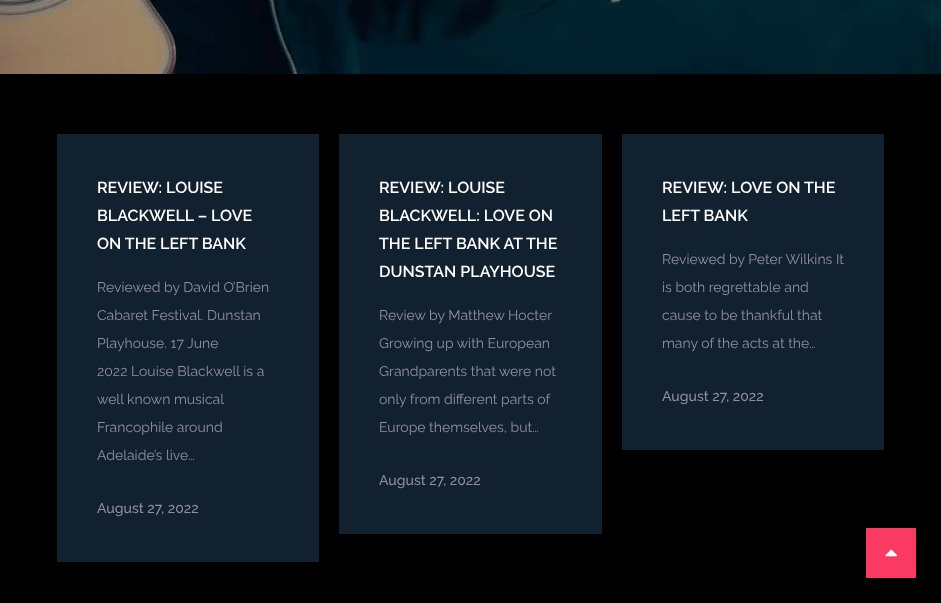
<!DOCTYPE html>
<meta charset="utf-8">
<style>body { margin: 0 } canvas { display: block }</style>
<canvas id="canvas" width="941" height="603"></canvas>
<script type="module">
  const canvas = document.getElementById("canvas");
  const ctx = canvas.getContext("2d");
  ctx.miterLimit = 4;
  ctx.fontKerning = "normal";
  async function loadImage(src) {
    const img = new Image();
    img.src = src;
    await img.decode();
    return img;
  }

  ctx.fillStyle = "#000000";
  ctx.fillRect(0, 0, 941, 603);
  ctx.drawImage(await loadImage("img1.png"), 0, 0, 941, 74);
  ctx.fillStyle = "#12212f";
  ctx.fillRect(57, 134, 262, 428);
  ctx.font = "600 16px Raleway";
  ctx.fillStyle = "#ffffff";
  ctx.fillText("REVIEW: LOUISE", 97, 193);
  ctx.fillText("BLACKWELL – LOVE", 97, 221);
  ctx.fillText("ON THE LEFT BANK", 97, 249);
  ctx.font = "14px Raleway";
  ctx.fillStyle = "#9090a0";
  ctx.fillText("Reviewed by David O’Brien", 97, 292);
  ctx.fillText("Cabaret Festival. Dunstan", 97, 320);
  ctx.fillText("Playhouse. 17 June", 97, 348);
  ctx.fillText("2022 Louise Blackwell is a", 97, 376);
  ctx.fillText("well known musical", 97, 404);
  ctx.fillText("Francophile around", 97, 432);
  ctx.fillText("Adelaide’s live…", 97, 460);
  ctx.font = "500 14px Raleway";
  ctx.fillText("August 27, 2022", 97, 513);
  ctx.fillStyle = "#12212f";
  ctx.fillRect(339, 134, 263, 400);
  ctx.font = "600 16px Raleway";
  ctx.fillStyle = "#ffffff";
  ctx.fillText("REVIEW: LOUISE", 379, 193);
  ctx.fillText("BLACKWELL: LOVE ON", 379, 221);
  ctx.fillText("THE LEFT BANK AT THE", 379, 249);
  ctx.fillText("DUNSTAN PLAYHOUSE", 379, 277);
  ctx.font = "14px Raleway";
  ctx.fillStyle = "#9090a0";
  ctx.fillText("Review by Matthew Hocter", 379, 320);
  ctx.fillText("Growing up with European", 379, 348);
  ctx.fillText("Grandparents that were not", 379, 376);
  ctx.fillText("only from different parts of", 379, 404);
  ctx.fillText("Europe themselves, but…", 379, 432);
  ctx.font = "500 14px Raleway";
  ctx.fillText("August 27, 2022", 379, 485);
  ctx.fillStyle = "#12212f";
  ctx.fillRect(622, 134, 262, 316);
  ctx.font = "600 16px Raleway";
  ctx.fillStyle = "#ffffff";
  ctx.fillText("REVIEW: LOVE ON THE", 662, 193);
  ctx.fillText("LEFT BANK", 662, 221);
  ctx.font = "14px Raleway";
  ctx.fillStyle = "#9090a0";
  ctx.fillText("Reviewed by Peter Wilkins It", 662, 264);
  ctx.fillText("is both regrettable and", 662, 292);
  ctx.fillText("cause to be thankful that", 662, 320);
  ctx.fillText("many of the acts at the…", 662, 348);
  ctx.font = "500 14px Raleway";
  ctx.fillText("August 27, 2022", 662, 401);
  ctx.fillStyle = "#fb3a64";
  ctx.fillRect(866, 528, 50, 50);
  ctx.drawImage(await loadImage("img2.png"), 885, 549, 12, 8);
</script>
